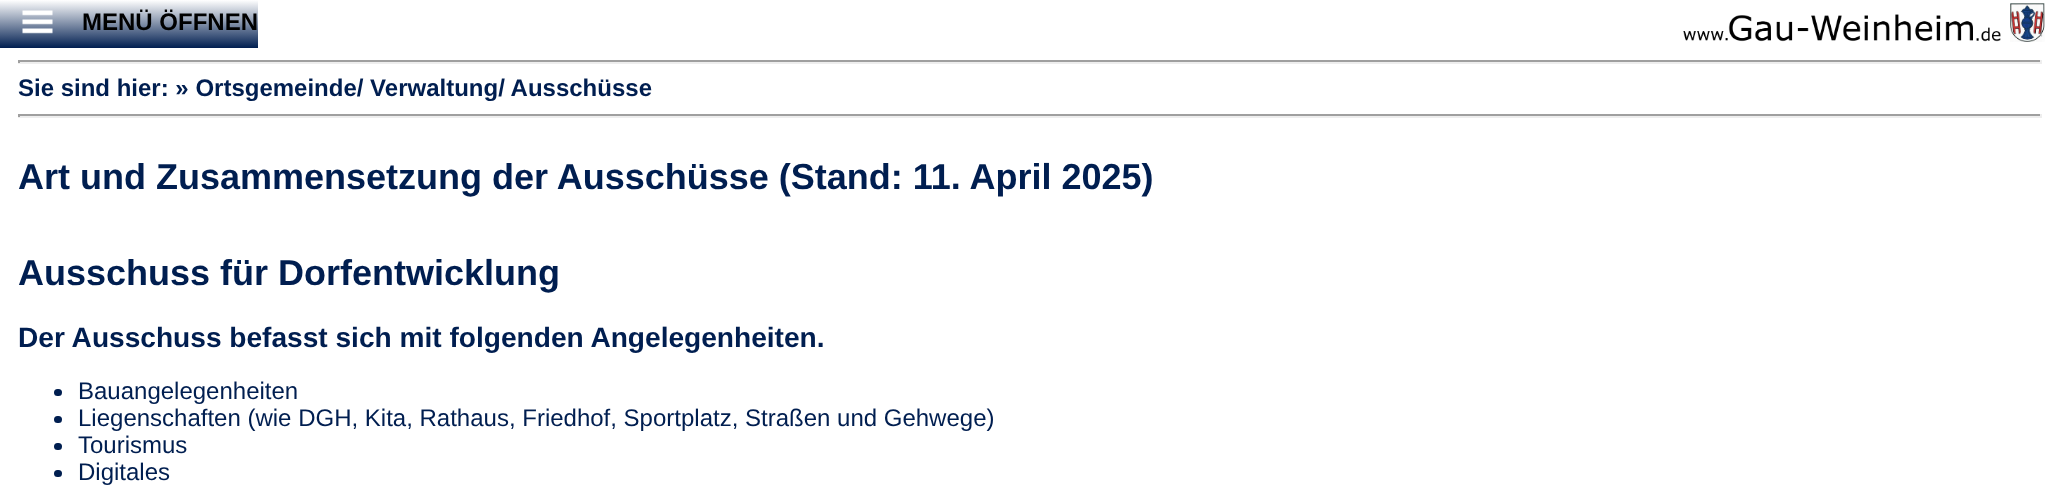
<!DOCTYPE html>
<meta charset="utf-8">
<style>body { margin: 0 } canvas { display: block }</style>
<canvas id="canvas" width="2059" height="487"></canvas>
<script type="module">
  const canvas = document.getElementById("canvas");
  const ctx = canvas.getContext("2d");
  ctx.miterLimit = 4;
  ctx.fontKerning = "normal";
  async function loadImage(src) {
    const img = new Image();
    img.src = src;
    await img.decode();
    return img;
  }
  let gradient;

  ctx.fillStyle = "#ffffff";
  ctx.fillRect(0, 0, 2059, 487);
  gradient = ctx.createLinearGradient(129, 48, 129, 0);
  gradient.addColorStop(0, "#001e50");
  gradient.addColorStop(1, "#ffffff");
  ctx.fillStyle = gradient;
  ctx.fillRect(0, 0, 258, 48);
  ctx.drawImage(await loadImage("img1.png"), 22, 10, 31, 24);
  ctx.font = "bold 24px Liberation Sans";
  ctx.fillStyle = "#000000";
  ctx.fillText("MENÜ ÖFFNEN", 82, 30);
  ctx.drawImage(await loadImage("img2.png"), 1683, 14, 318, 28);
  ctx.drawImage(await loadImage("img3.png"), 2010, 3, 35, 39);
  ctx.fillStyle = "#9f9f9f";
  ctx.fillRect(18, 60, 2024, 2);
  ctx.fillStyle = "#eeeeee";
  ctx.fillRect(2040, 60, 2, 3);
  ctx.fillRect(18, 62, 2024, 2);
  ctx.fillStyle = "#9f9f9f";
  ctx.fillRect(18, 60, 2, 3);
  ctx.fillStyle = "#001e50";
  ctx.fillText("Sie sind hier: » Ortsgemeinde/ Verwaltung/ Ausschüsse", 18, 96);
  ctx.fillStyle = "#9f9f9f";
  ctx.fillRect(18, 114, 2024, 2);
  ctx.fillStyle = "#eeeeee";
  ctx.fillRect(2040, 114, 2, 3);
  ctx.fillRect(18, 116, 2024, 2);
  ctx.fillStyle = "#9f9f9f";
  ctx.fillRect(18, 114, 2, 3);
  ctx.font = "bold 36px Liberation Sans";
  ctx.fillStyle = "#001e50";
  ctx.fillText("Art und Zusammensetzung der Ausschüsse (Stand: 11. April 2025)", 18, 189);
  ctx.fillText("Ausschuss für Dorfentwicklung", 18, 285);
  ctx.font = "bold 28.1px Liberation Sans";
  ctx.fillText("Der Ausschuss befasst sich mit folgenden Angelegenheiten.", 18, 347);
  ctx.beginPath();
  ctx.roundRect(54, 389, 8, 7, 3.5);
  ctx.fill();
  ctx.font = "24px Liberation Sans";
  ctx.fillText("Bauangelegenheiten", 78, 399);
  ctx.beginPath();
  ctx.roundRect(54, 416, 8, 7, 3.5);
  ctx.fill();
  ctx.fillText("Liegenschaften (wie DGH, Kita, Rathaus, Friedhof, Sportplatz, Straßen und Gehwege)", 78, 426);
  ctx.beginPath();
  ctx.roundRect(54, 443, 8, 7, 3.5);
  ctx.fill();
  ctx.fillText("Tourismus", 78, 453);
  ctx.beginPath();
  ctx.roundRect(54, 470, 8, 7, 3.5);
  ctx.fill();
  ctx.fillText("Digitales", 78, 480);
</script>
